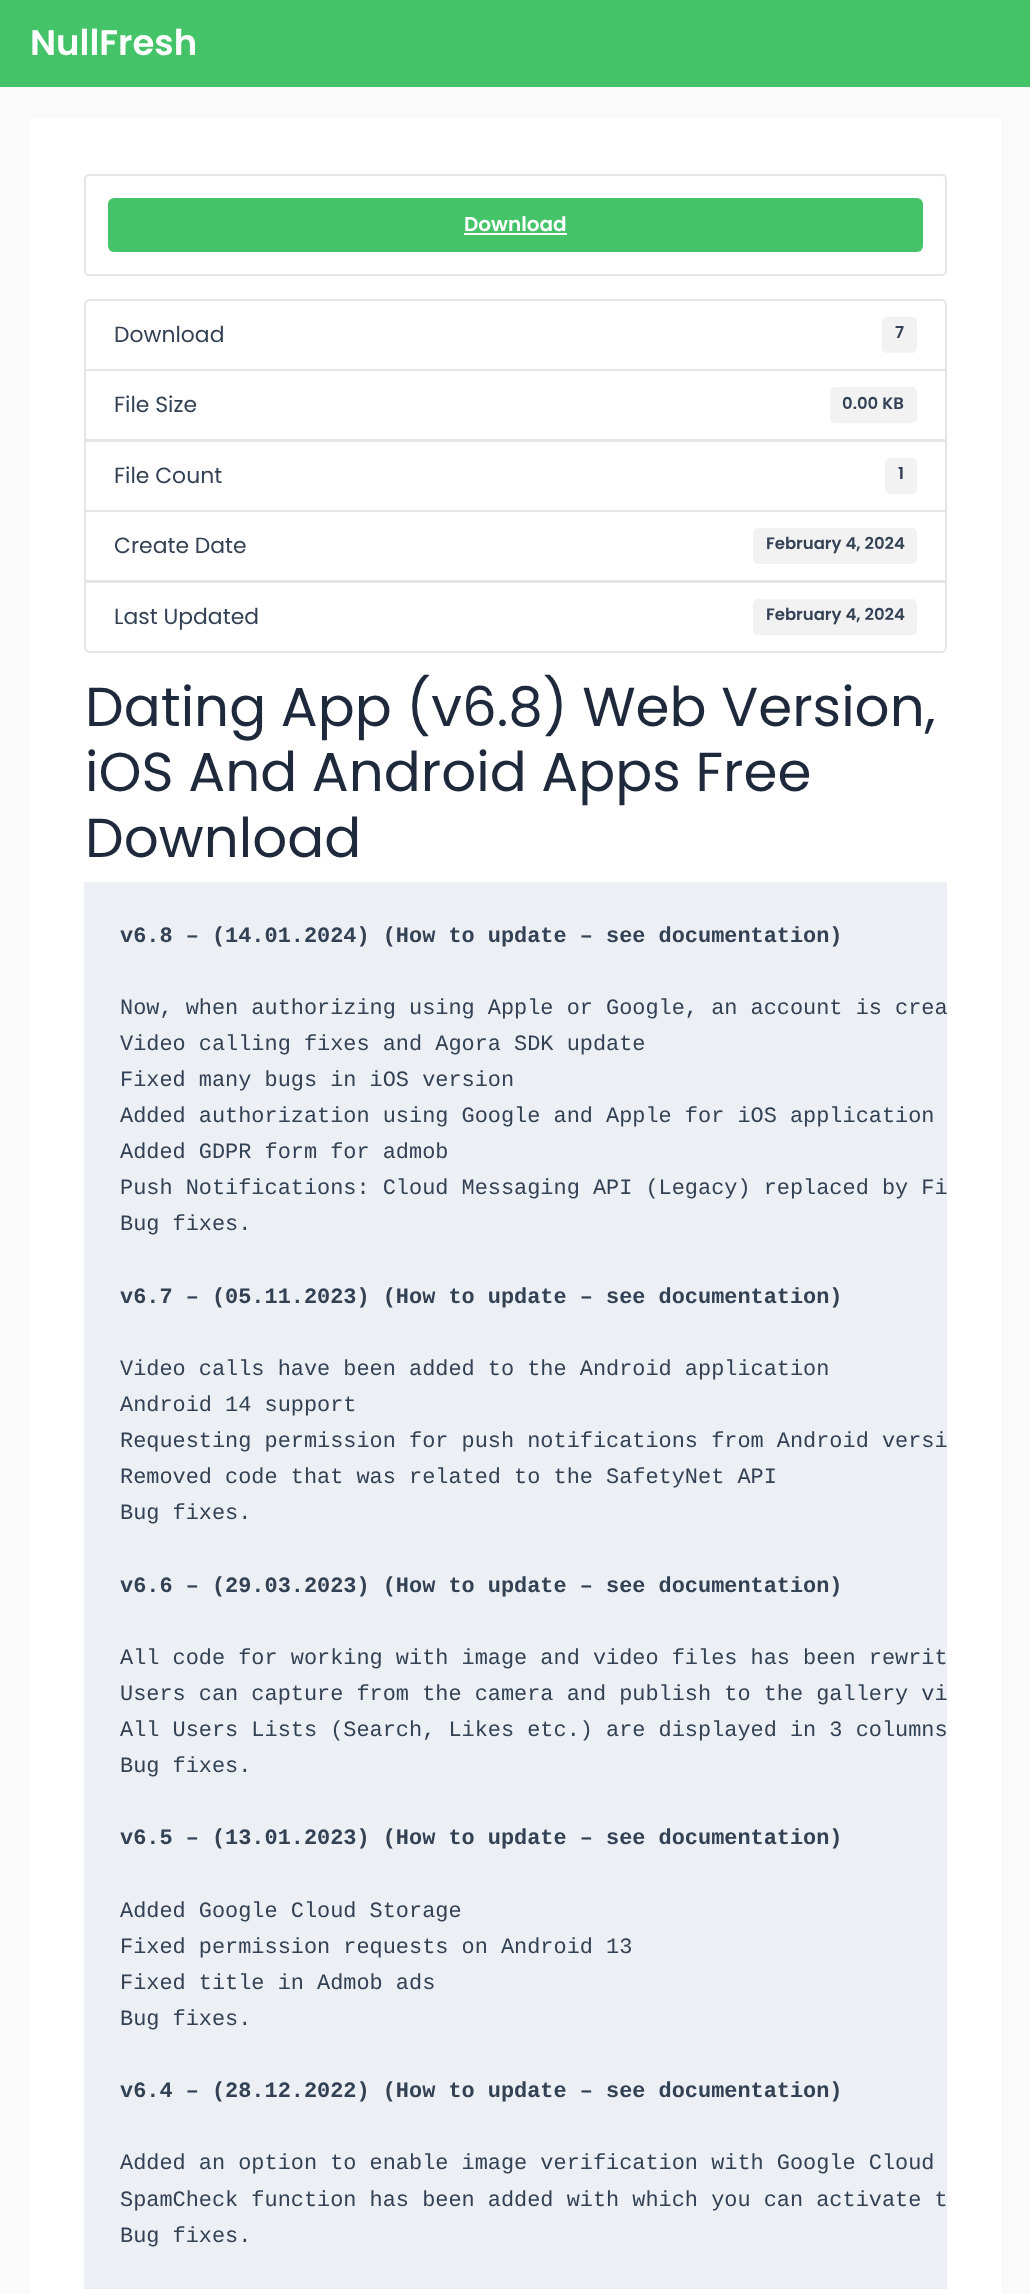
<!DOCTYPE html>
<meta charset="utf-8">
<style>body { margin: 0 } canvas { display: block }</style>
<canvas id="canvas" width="1030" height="2294"></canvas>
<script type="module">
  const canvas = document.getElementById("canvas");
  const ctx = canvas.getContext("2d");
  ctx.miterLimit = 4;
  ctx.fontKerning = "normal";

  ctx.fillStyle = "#fafafa";
  ctx.fillRect(0, 0, 1030, 2294);
  ctx.fillStyle = "#45c368";
  ctx.fillRect(0, 0, 1030, 87);
  ctx.font = "600 35.5px Poppins";
  ctx.fillStyle = "#ffffff";
  ctx.fillText("NullFresh", 30, 55);
  ctx.fillRect(30, 119, 971, 2175);
  ctx.beginPath();
  ctx.roundRect(85, 175, 861, 100, 4);
  ctx.strokeStyle = "#e5e5e5";
  ctx.lineWidth = 2;
  ctx.stroke();
  ctx.fillStyle = "#45c368";
  ctx.beginPath();
  ctx.roundRect(108, 198, 815, 54, 6);
  ctx.fill();
  ctx.font = "600 20px Poppins";
  ctx.fillStyle = "#ffffff";
  ctx.fillText("Download", 464, 231);
  ctx.fillRect(464, 233, 103, 2);
  ctx.beginPath();
  ctx.roundRect(85, 300, 861, 70, [5, 5, 0, 0]);
  ctx.stroke();
  ctx.font = "21.9px Poppins";
  ctx.fillStyle = "#334155";
  ctx.fillText("Download", 114, 342);
  ctx.fillStyle = "#f2f2f2";
  ctx.beginPath();
  ctx.roundRect(882, 317, 35, 36, 5);
  ctx.fill();
  ctx.font = "600 16.5px Poppins";
  ctx.fillStyle = "#334155";
  ctx.fillText("7", 895, 338);
  ctx.strokeRect(85, 370, 861, 70);
  ctx.font = "21.9px Poppins";
  ctx.fillText("File Size", 114, 412);
  ctx.fillStyle = "#f2f2f2";
  ctx.beginPath();
  ctx.roundRect(830, 387, 87, 36, 5);
  ctx.fill();
  ctx.font = "600 16.5px Poppins";
  ctx.fillStyle = "#334155";
  ctx.fillText("0.00 KB", 842, 409);
  ctx.strokeRect(85, 441, 861, 70);
  ctx.font = "21.9px Poppins";
  ctx.fillText("File Count", 114, 483);
  ctx.fillStyle = "#f2f2f2";
  ctx.beginPath();
  ctx.roundRect(885, 458, 32, 36, 5);
  ctx.fill();
  ctx.font = "600 16.5px Poppins";
  ctx.fillStyle = "#334155";
  ctx.fillText("1", 898, 479);
  ctx.strokeRect(85, 511, 861, 70);
  ctx.font = "21.9px Poppins";
  ctx.fillText("Create Date", 114, 553);
  ctx.fillStyle = "#f2f2f2";
  ctx.beginPath();
  ctx.roundRect(753, 528, 164, 36, 5);
  ctx.fill();
  ctx.font = "600 16.5px Poppins";
  ctx.fillStyle = "#334155";
  ctx.fillText("February 4, 2024", 766, 549);
  ctx.fillStyle = "#ffffff";
  ctx.beginPath();
  ctx.roundRect(85, 582, 861, 70, [0, 0, 5, 5]);
  ctx.fill();
  ctx.stroke();
  ctx.font = "21.9px Poppins";
  ctx.fillStyle = "#334155";
  ctx.fillText("Last Updated", 114, 624);
  ctx.fillStyle = "#f2f2f2";
  ctx.beginPath();
  ctx.roundRect(753, 599, 164, 36, 5);
  ctx.fill();
  ctx.font = "600 16.5px Poppins";
  ctx.fillStyle = "#334155";
  ctx.fillText("February 4, 2024", 766, 620);
  ctx.font = "54.75px Poppins";
  ctx.fillStyle = "#1e293b";
  ctx.fillText("Dating App (v6.8) Web Version,", 85, 726);
  ctx.fillText("iOS And Android Apps Free", 85, 791);
  ctx.fillText("Download", 85, 857);
  ctx.fillStyle = "#eceff3";
  ctx.fillRect(84, 882, 863, 1407);
  ctx.font = "bold 21.9px Liberation Mono";
  ctx.fillStyle = "#334155";
  ctx.fillText("v6.8 – (14.01.2024) (How to update – see documentation)", 120, 942);
  ctx.font = "21.9px Liberation Mono";
  ctx.fillText("Now, when authorizing using Apple or Google, an account is crea", 120, 1014);
  ctx.fillText("Video calling fixes and Agora SDK update", 120, 1050);
  ctx.fillText("Fixed many bugs in iOS version", 120, 1086);
  ctx.fillText("Added authorization using Google and Apple for iOS application", 120, 1122);
  ctx.fillText("Added GDPR form for admob", 120, 1158);
  ctx.fillText("Push Notifications: Cloud Messaging API (Legacy) replaced by Fi", 120, 1194);
  ctx.fillText("Bug fixes.", 120, 1230);
  ctx.font = "bold 21.9px Liberation Mono";
  ctx.fillText("v6.7 – (05.11.2023) (How to update – see documentation)", 120, 1303);
  ctx.font = "21.9px Liberation Mono";
  ctx.fillText("Video calls have been added to the Android application", 120, 1375);
  ctx.fillText("Android 14 support", 120, 1411);
  ctx.fillText("Requesting permission for push notifications from Android versi", 120, 1447);
  ctx.fillText("Removed code that was related to the SafetyNet API", 120, 1483);
  ctx.fillText("Bug fixes.", 120, 1519);
  ctx.font = "bold 21.9px Liberation Mono";
  ctx.fillText("v6.6 – (29.03.2023) (How to update – see documentation)", 120, 1592);
  ctx.font = "21.9px Liberation Mono";
  ctx.fillText("All code for working with image and video files has been rewrit", 120, 1664);
  ctx.fillText("Users can capture from the camera and publish to the gallery vi", 120, 1700);
  ctx.fillText("All Users Lists (Search, Likes etc.) are displayed in 3 columns", 120, 1736);
  ctx.fillText("Bug fixes.", 120, 1772);
  ctx.font = "bold 21.9px Liberation Mono";
  ctx.fillText("v6.5 – (13.01.2023) (How to update – see documentation)", 120, 1844);
  ctx.font = "21.9px Liberation Mono";
  ctx.fillText("Added Google Cloud Storage", 120, 1917);
  ctx.fillText("Fixed permission requests on Android 13", 120, 1953);
  ctx.fillText("Fixed title in Admob ads", 120, 1989);
  ctx.fillText("Bug fixes.", 120, 2025);
  ctx.font = "bold 21.9px Liberation Mono";
  ctx.fillText("v6.4 – (28.12.2022) (How to update – see documentation)", 120, 2097);
  ctx.font = "21.9px Liberation Mono";
  ctx.fillText("Added an option to enable image verification with Google Cloud", 120, 2169);
  ctx.fillText("SpamCheck function has been added with which you can activate t", 120, 2206);
  ctx.fillText("Bug fixes.", 120, 2242);
</script>
